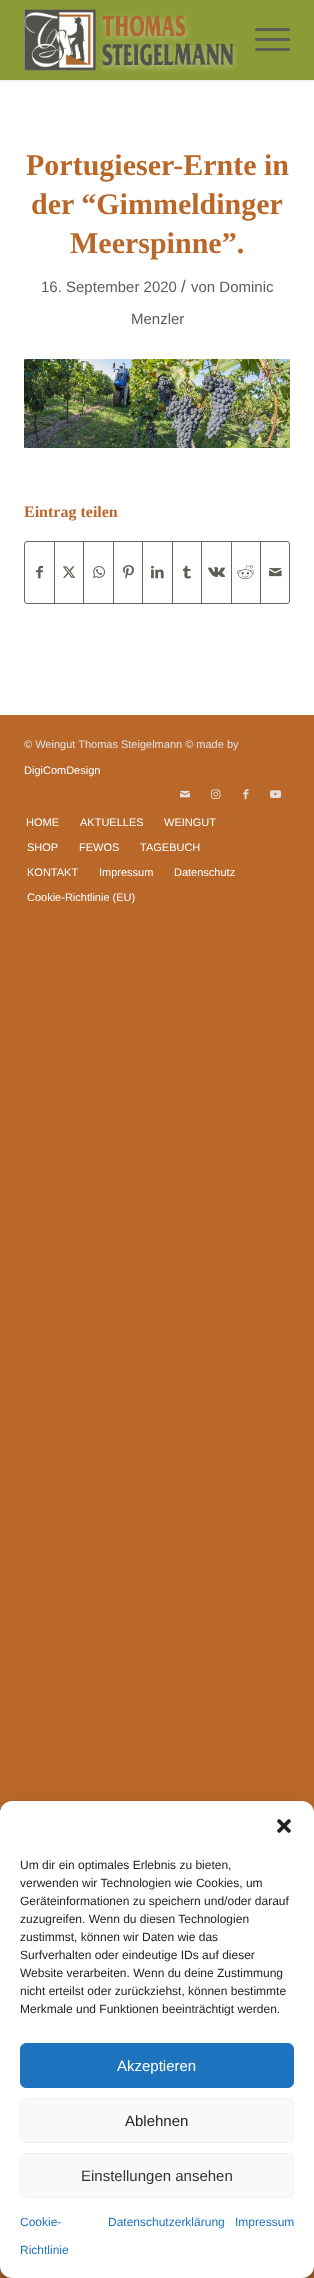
<!DOCTYPE html>
<meta charset="utf-8">
<style>body { margin: 0 } canvas { display: block }</style>
<canvas id="canvas" width="314" height="2278"></canvas>
<script type="module">
  const canvas = document.getElementById("canvas");
  const ctx = canvas.getContext("2d");
  ctx.miterLimit = 4;
  ctx.fontKerning = "normal";
  async function loadImage(src) {
    const img = new Image();
    img.src = src;
    await img.decode();
    return img;
  }

  ctx.fillStyle = "#b9682a";
  ctx.fillRect(0, 0, 314, 2278);
  ctx.fillStyle = "#ffffff";
  ctx.fillRect(0, 80, 314, 635);
  ctx.fillStyle = "rgba(0, 0, 0, 0.1)";
  ctx.filter = "blur(1px)";
  ctx.beginPath();
  ctx.rect(-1, -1, 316, 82);
  ctx.fill();
  ctx.filter = "none";
  ctx.fillStyle = "#8b9c37";
  ctx.fillRect(0, 0, 314, 80);
  ctx.drawImage(await loadImage("img1.png"), 24, 9, 213, 63);
  ctx.fillStyle = "#5e5d55";
  ctx.beginPath();
  ctx.roundRect(255, 38, 35, 3, 1.5);
  ctx.fill();
  ctx.beginPath();
  ctx.roundRect(255, 28, 35, 3, 1.5);
  ctx.fill();
  ctx.beginPath();
  ctx.roundRect(255, 48, 35, 3, 1.5);
  ctx.fill();
  ctx.font = "bold 30px Liberation Serif";
  ctx.fillStyle = "#b9682a";
  ctx.fillText("Portugieser-Ernte in", 26, 175);
  ctx.fillText("der “Gimmeldinger", 31, 214);
  ctx.fillText("Meerspinne”.", 70, 253);
  ctx.font = "15px Liberation Sans";
  ctx.fillStyle = "#5e5d55";
  ctx.fillText("16. September 2020", 41, 292);
  ctx.font = "17px Liberation Sans";
  ctx.fillText("/", 181, 292);
  ctx.font = "15px Liberation Sans";
  ctx.fillText("von Dominic", 191, 292);
  ctx.fillText("Menzler", 131, 324);
  ctx.drawImage(await loadImage("img2.png"), 24, 359, 266, 89);
  ctx.font = "bold 16px Liberation Serif";
  ctx.fillStyle = "#b9682a";
  ctx.fillText("Eintrag teilen", 24, 517);
  ctx.beginPath();
  ctx.roundRect(24.5, 541.5, 265, 62, 2.5);
  ctx.strokeStyle = "#666666";
  ctx.stroke();
  ctx.drawImage(await loadImage("img3.png"), 36, 565, 7, 14);
  ctx.fillStyle = "#666666";
  ctx.fillRect(54, 542, 1, 61);
  ctx.drawImage(await loadImage("img4.png"), 62, 566, 14, 12);
  ctx.fillRect(83, 542, 1, 61);
  ctx.drawImage(await loadImage("img5.png"), 93, 566, 12, 13);
  ctx.fillRect(113, 542, 1, 61);
  ctx.drawImage(await loadImage("img6.png"), 123, 565, 11, 14);
  ctx.fillRect(142, 542, 1, 61);
  ctx.drawImage(await loadImage("img7.png"), 151, 565, 13, 14);
  ctx.fillRect(172, 542, 1, 61);
  ctx.drawImage(await loadImage("img8.png"), 183, 565, 8, 14);
  ctx.fillRect(201, 542, 1, 61);
  ctx.drawImage(await loadImage("img9.png"), 208, 567, 17, 10);
  ctx.fillRect(231, 542, 1, 61);
  ctx.drawImage(await loadImage("img10.png"), 237, 565, 17, 15);
  ctx.fillRect(260, 542, 1, 61);
  ctx.drawImage(await loadImage("img11.png"), 269, 568, 13, 9);
  ctx.font = "11px Liberation Sans";
  ctx.fillStyle = "#e1e1e1";
  ctx.fillText("© Weingut Thomas Steigelmann © made by", 24, 748);
  ctx.fillStyle = "#ffffff";
  ctx.fillText("DigiComDesign", 24, 774);
  ctx.drawImage(await loadImage("img12.png"), 180, 790, 10, 8);
  ctx.drawImage(await loadImage("img13.png"), 211, 789, 10, 10);
  ctx.drawImage(await loadImage("img14.png"), 243, 789, 6, 11);
  ctx.drawImage(await loadImage("img15.png"), 270, 790, 11, 8);
  ctx.fillText("HOME", 26, 826);
  ctx.fillText("AKTUELLES", 80, 826);
  ctx.fillText("WEINGUT", 164, 826);
  ctx.fillText("SHOP", 27, 851);
  ctx.fillText("FEWOS", 79, 851);
  ctx.fillText("TAGEBUCH", 140, 851);
  ctx.fillText("KONTAKT", 27, 876);
  ctx.fillText("Impressum", 99, 876);
  ctx.fillText("Datenschutz", 174, 876);
  ctx.fillText("Cookie-Richtlinie (EU)", 27, 901);
  ctx.fillStyle = "rgba(0, 0, 0, 0.23)";
  ctx.filter = "blur(3px)";
  ctx.beginPath();
  ctx.roundRect(0, 1807, 314, 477, 12);
  ctx.fill();
  ctx.filter = "none";
  ctx.fillStyle = "rgba(0, 0, 0, 0.19)";
  ctx.filter = "blur(10px)";
  ctx.beginPath();
  ctx.roundRect(0, 1811, 314, 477, 12);
  ctx.fill();
  ctx.filter = "none";
  ctx.fillStyle = "#ffffff";
  ctx.beginPath();
  ctx.roundRect(0, 1801, 314, 477, 12);
  ctx.fill();
  ctx.drawImage(await loadImage("img16.png"), 277, 1819, 14, 14);
  ctx.font = "12px Liberation Sans";
  ctx.fillStyle = "#222222";
  ctx.fillText("Um dir ein optimales Erlebnis zu bieten,", 20, 1869);
  ctx.fillText("verwenden wir Technologien wie Cookies, um", 20, 1887);
  ctx.fillText("Geräteinformationen zu speichern und/oder darauf", 20, 1905);
  ctx.fillText("zuzugreifen. Wenn du diesen Technologien", 20, 1923);
  ctx.fillText("zustimmst, können wir Daten wie das", 20, 1941);
  ctx.fillText("Surfverhalten oder eindeutige IDs auf dieser", 20, 1959);
  ctx.fillText("Website verarbeiten. Wenn du deine Zustimmung", 20, 1977);
  ctx.fillText("nicht erteilst oder zurückziehst, können bestimmte", 20, 1995);
  ctx.fillText("Merkmale und Funktionen beeinträchtigt werden.", 20, 2013);
  ctx.fillStyle = "#1e73be";
  ctx.beginPath();
  ctx.roundRect(20.5, 2043.5, 273, 44, 5.5);
  ctx.fill();
  ctx.strokeStyle = "#1e73be";
  ctx.stroke();
  ctx.font = "15px Liberation Sans";
  ctx.fillStyle = "#ffffff";
  ctx.fillText("Akzeptieren", 117, 2071);
  ctx.fillStyle = "#f9f9f9";
  ctx.beginPath();
  ctx.roundRect(20.5, 2098.5, 273, 44, 5.5);
  ctx.fill();
  ctx.strokeStyle = "#f2f2f2";
  ctx.stroke();
  ctx.fillStyle = "#222222";
  ctx.fillText("Ablehnen", 125, 2126);
  ctx.fillStyle = "#f9f9f9";
  ctx.beginPath();
  ctx.roundRect(20.5, 2153.5, 273, 44, 5.5);
  ctx.fill();
  ctx.stroke();
  ctx.fillStyle = "#333333";
  ctx.fillText("Einstellungen ansehen", 81, 2181);
  ctx.font = "12px Liberation Sans";
  ctx.fillStyle = "#1e73be";
  ctx.fillText("Cookie-", 20, 2226);
  ctx.fillText("Richtlinie", 20, 2254);
  ctx.fillText("Datenschutzerklärung", 108, 2226);
  ctx.fillText("Impressum", 235, 2226);
</script>
